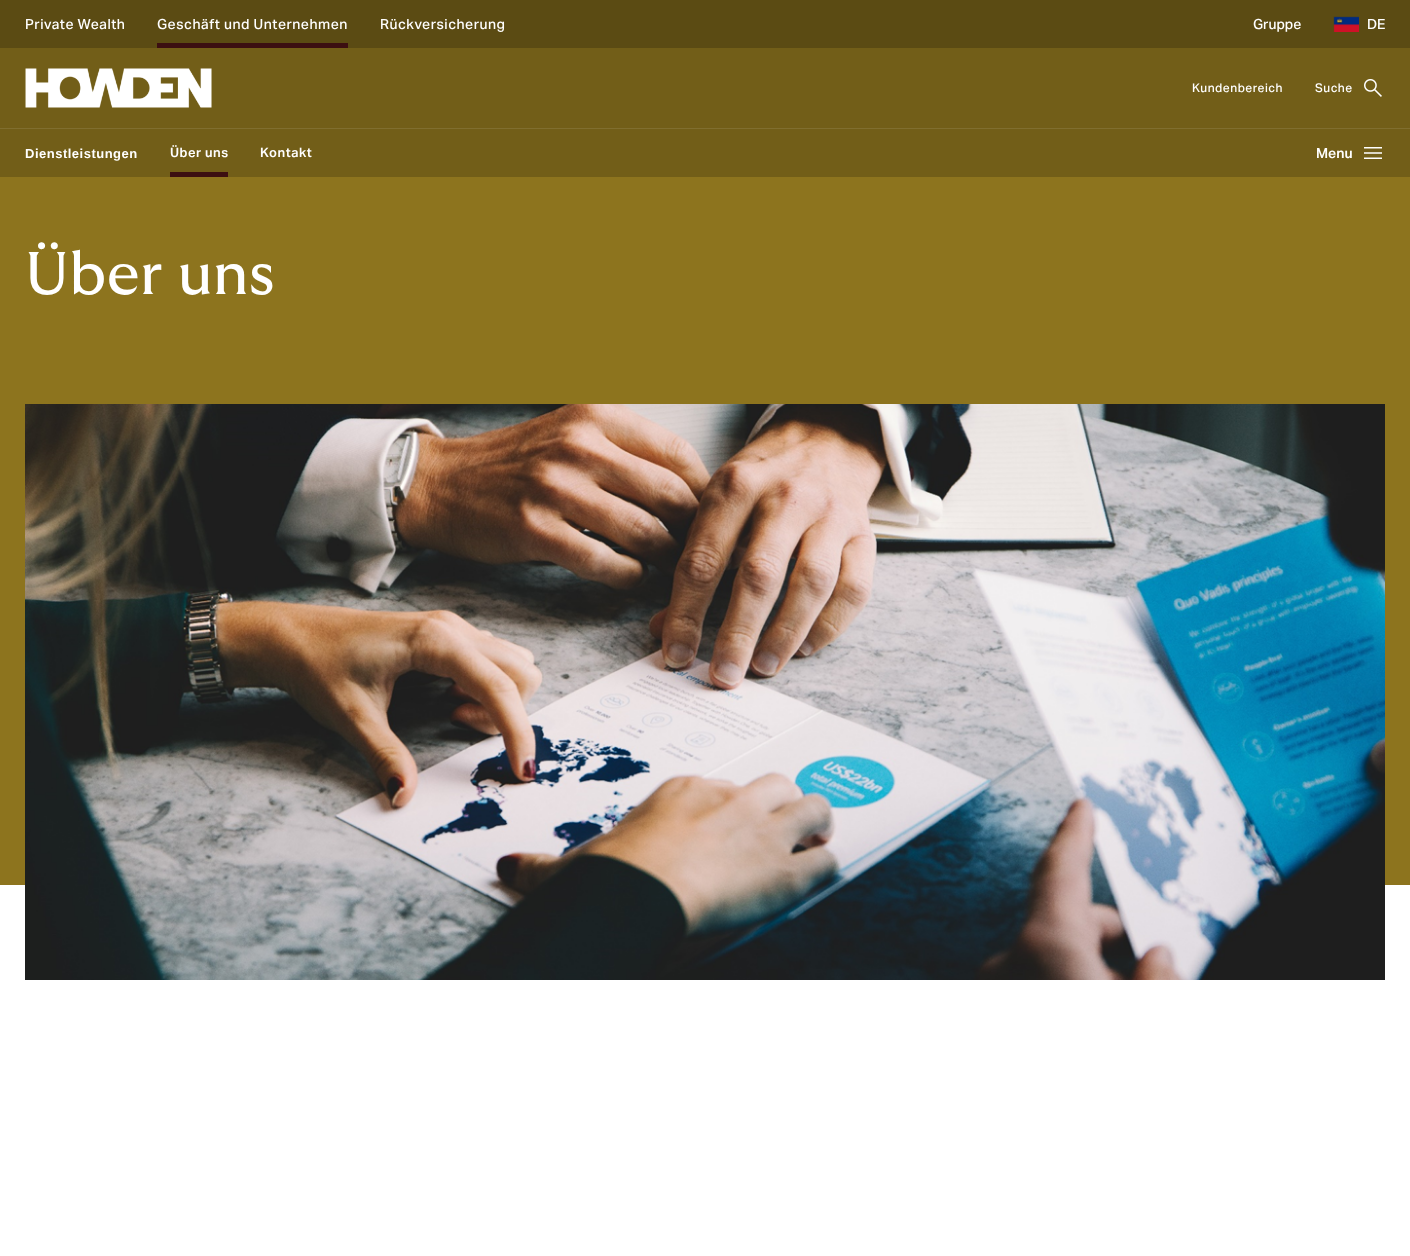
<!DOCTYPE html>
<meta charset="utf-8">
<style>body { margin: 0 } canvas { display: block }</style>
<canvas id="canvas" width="1410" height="1256"></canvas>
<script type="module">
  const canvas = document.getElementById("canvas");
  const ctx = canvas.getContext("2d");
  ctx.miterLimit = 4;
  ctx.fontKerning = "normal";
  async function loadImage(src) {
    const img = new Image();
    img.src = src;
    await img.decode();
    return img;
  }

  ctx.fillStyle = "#ffffff";
  ctx.fillRect(0, 0, 1410, 1256);
  ctx.fillStyle = "#725e18";
  ctx.fillRect(0, 48, 1410, 129);
  ctx.fillStyle = "#5b4b13";
  ctx.fillRect(0, 0, 1410, 48);
  ctx.letterSpacing = "0.5px";
  ctx.font = "500 14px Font";
  ctx.fillStyle = "#ffffff";
  ctx.fillText("Private Wealth", 25, 29);
  ctx.fillText("Geschäft und Unternehmen", 157, 29);
  ctx.fillStyle = "#3c0f11";
  ctx.fillRect(157, 43, 191, 5);
  ctx.fillStyle = "#ffffff";
  ctx.fillText("Rückversicherung", 380, 29);
  ctx.letterSpacing = "0px";
  ctx.fillText("Gruppe", 1253, 29);
  ctx.drawImage(await loadImage("img1.png"), 1333, 16, 26, 16);
  ctx.fillText("DE", 1367, 29);
  ctx.fillStyle = "#806e2f";
  ctx.fillRect(0, 128, 1410, 1);
  ctx.drawImage(await loadImage("img2.png"), 25, 68, 187, 40);
  ctx.letterSpacing = "0.5px";
  ctx.font = "500 12px Font";
  ctx.fillStyle = "#ffffff";
  ctx.fillText("Kundenbereich", 1192, 92);
  ctx.fillText("Suche", 1315, 92);
  ctx.drawImage(await loadImage("img3.png"), 1364, 79, 18, 18);
  ctx.font = "bold 13px Liberation Sans";
  ctx.fillText("Dienstleistungen", 25, 158);
  ctx.font = "600 13px Font";
  ctx.fillText("Über uns", 170, 157);
  ctx.fillStyle = "#3c0f11";
  ctx.fillRect(170, 172, 58, 5);
  ctx.fillStyle = "#ffffff";
  ctx.fillText("Kontakt", 260, 157);
  ctx.letterSpacing = "0px";
  ctx.font = "600 14px Font";
  ctx.fillText("Menu", 1316, 158);
  ctx.drawImage(await loadImage("img4.png"), 1364, 147, 18, 12);
  ctx.fillStyle = "#8d741e";
  ctx.fillRect(0, 177, 1410, 708);
  ctx.font = "60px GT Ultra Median";
  ctx.fillStyle = "#ffffff";
  ctx.fillText("Über uns", 25, 294);
  ctx.drawImage(await loadImage("img5.png"), 25, 404, 1360, 576);
</script>
